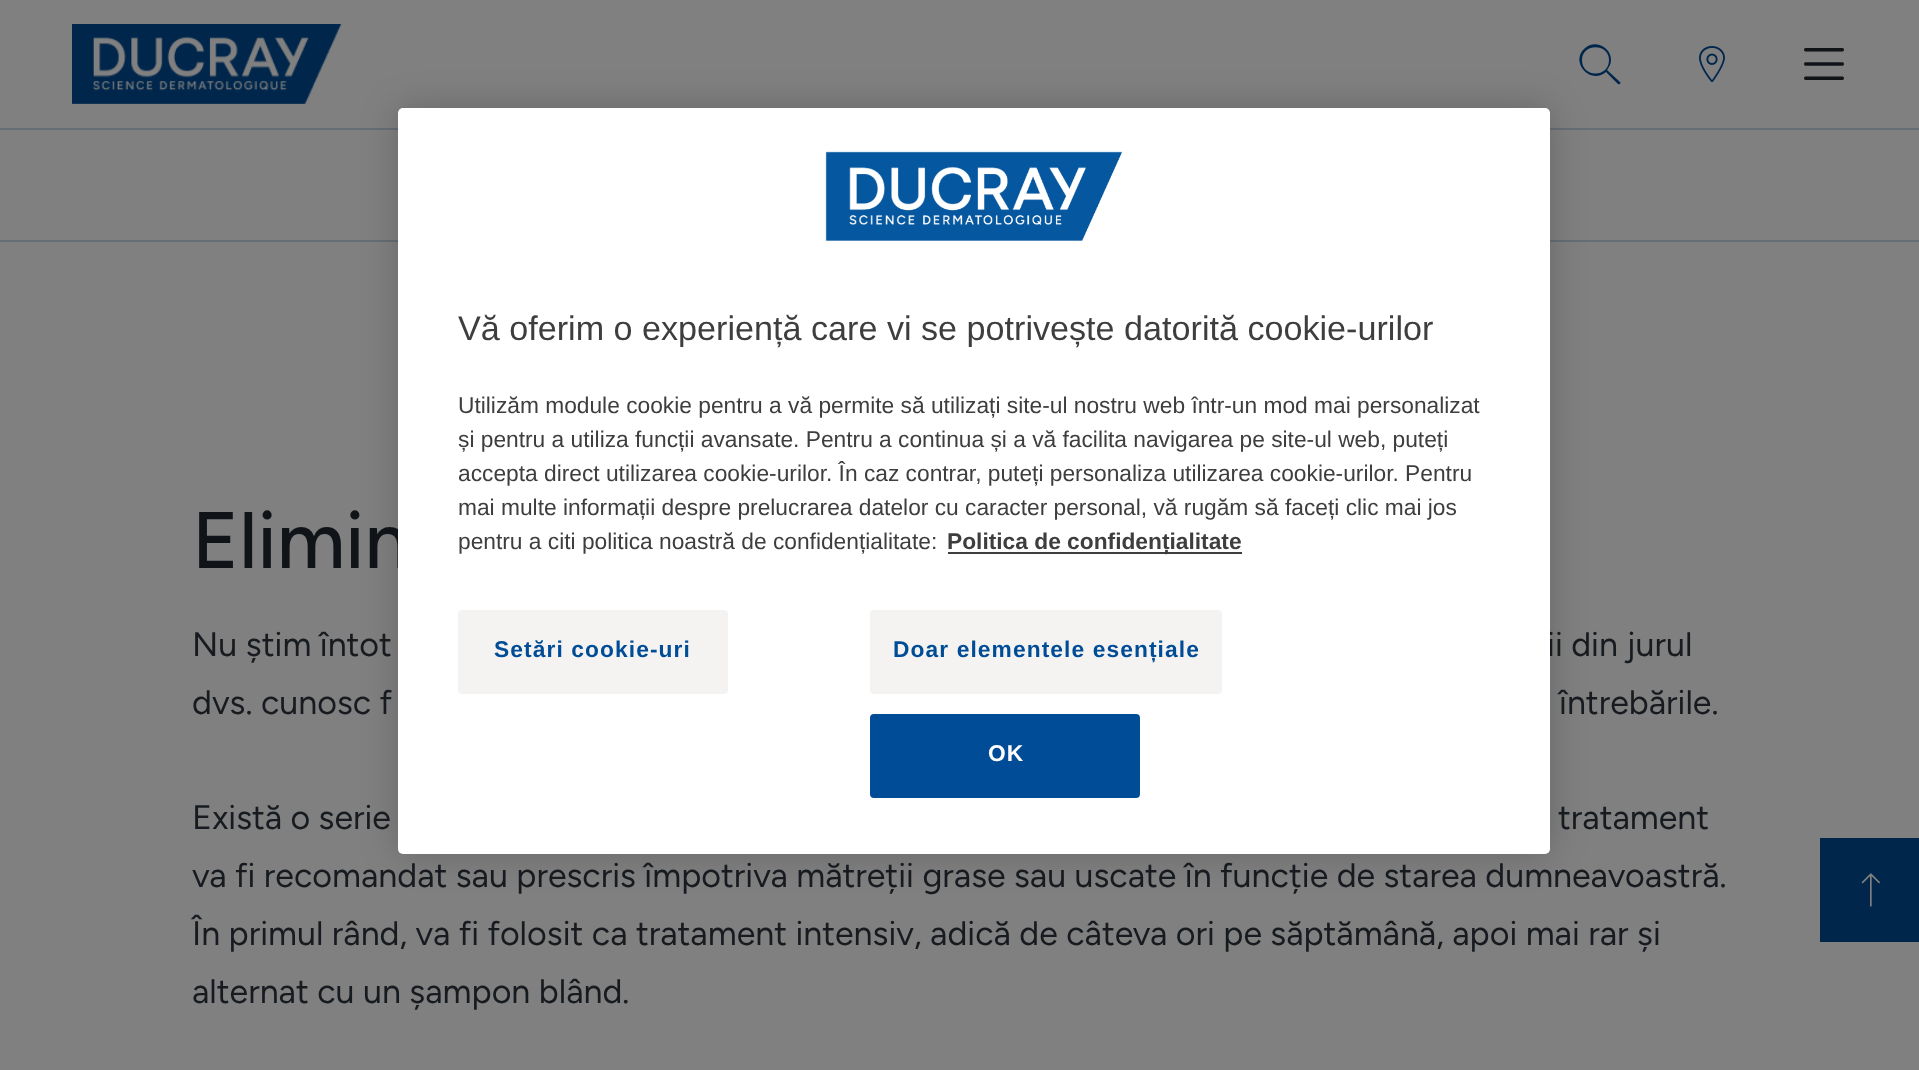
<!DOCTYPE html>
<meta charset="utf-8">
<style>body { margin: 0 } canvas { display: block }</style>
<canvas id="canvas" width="1919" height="1070"></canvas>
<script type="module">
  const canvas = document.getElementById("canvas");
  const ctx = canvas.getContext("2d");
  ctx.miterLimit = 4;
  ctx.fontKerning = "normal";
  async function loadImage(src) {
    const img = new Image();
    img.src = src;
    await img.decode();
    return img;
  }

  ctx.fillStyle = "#808080";
  ctx.fillRect(0, 0, 1919, 1070);
  ctx.fillStyle = "#666e75";
  ctx.fillRect(0, 128, 1919, 2);
  ctx.drawImage(await loadImage("img1.png"), 72, 24, 270, 80);
  ctx.fillStyle = "#00264c";
  ctx.beginPath();
  ctx.moveTo(1582, 60);
  ctx.bezierCurveTo(1582, 43, 1609, 43, 1609, 60);
  ctx.bezierCurveTo(1609, 78, 1582, 78, 1582, 60);
  ctx.closePath();
  ctx.moveTo(1620, 82);
  ctx.lineTo(1607, 70);
  ctx.bezierCurveTo(1620, 55, 1599, 35, 1584, 49);
  ctx.bezierCurveTo(1570, 63, 1591, 85, 1606, 72);
  ctx.lineTo(1618, 84);
  ctx.bezierCurveTo(1620, 85, 1621, 83, 1620, 82);
  ctx.closePath();
  ctx.fill("evenodd");
  ctx.drawImage(await loadImage("img2.png"), 1699, 46, 26, 36);
  ctx.drawImage(await loadImage("img3.png"), 1804, 48, 40, 32);
  ctx.fillStyle = "#666e75";
  ctx.fillRect(0, 240, 1919, 2);
  ctx.fillStyle = "rgba(0, 0, 0, 0.2)";
  ctx.filter = "blur(18px)";
  ctx.beginPath();
  ctx.roundRect(398, 108, 1152, 746, 5);
  ctx.fill();
  ctx.filter = "none";
  ctx.font = "500 80px Figtree";
  ctx.fillStyle = "#101418";
  ctx.fillText("Elimin", 192, 568);
  ctx.font = "34px Figtree";
  ctx.fillStyle = "#171b1f";
  ctx.fillText("ii din jurul", 1547, 656);
  ctx.fillStyle = "#ffffff";
  ctx.beginPath();
  ctx.roundRect(398, 108, 1152, 746, 5);
  ctx.fill();
  ctx.drawImage(await loadImage("img4.png"), 825, 151, 297, 90);
  ctx.font = "34.15px Liberation Sans";
  ctx.fillStyle = "#3e3e3e";
  ctx.fillText("Vă oferim o experiență care vi se potrivește datorită cookie-urilor", 458, 340);
  ctx.font = "22.75px Liberation Sans";
  ctx.fillText("Utilizăm module cookie pentru a vă permite să utilizați site-ul nostru web într-un mod mai personalizat", 458, 413);
  ctx.fillText("și pentru a utiliza funcții avansate. Pentru a continua și a vă facilita navigarea pe site-ul web, puteți", 458, 447);
  ctx.fillText("accepta direct utilizarea cookie-urilor. În caz contrar, puteți personaliza utilizarea cookie-urilor. Pentru", 458, 481);
  ctx.fillText("mai multe informații despre prelucrarea datelor cu caracter personal, vă rugăm să faceți clic mai jos", 458, 515);
  ctx.fillText("pentru a citi politica noastră de confidențialitate:", 458, 549);
  ctx.fillRect(948, 552, 294, 2);
  ctx.font = "bold 22.75px Liberation Sans";
  ctx.fillText("Politica de confidențialitate", 947, 549);
  ctx.fillStyle = "#f4f3f1";
  ctx.beginPath();
  ctx.roundRect(459, 611, 268, 82, 3);
  ctx.fill();
  ctx.strokeStyle = "#f4f3f1";
  ctx.lineWidth = 2;
  ctx.stroke();
  ctx.letterSpacing = "1.1px";
  ctx.fillStyle = "#004c97";
  ctx.fillText("Setări cookie-uri", 494, 657);
  ctx.fillStyle = "#f4f3f1";
  ctx.beginPath();
  ctx.roundRect(871, 611, 350, 82, 3);
  ctx.fill();
  ctx.stroke();
  ctx.fillStyle = "#004c97";
  ctx.fillText("Doar elementele esențiale", 893, 657);
  ctx.beginPath();
  ctx.roundRect(871, 715, 268, 82, 3);
  ctx.fill();
  ctx.strokeStyle = "#004c97";
  ctx.stroke();
  ctx.fillStyle = "#ffffff";
  ctx.fillText("OK", 988, 761);
  ctx.letterSpacing = "0px";
  ctx.font = "34px Figtree";
  ctx.fillStyle = "#171b1f";
  ctx.fillText("Nu știm întot", 192, 656);
  ctx.fillText("dvs. cunosc f", 192, 714);
  ctx.fillText("întrebările.", 1559, 714);
  ctx.fillText("Există o serie", 192, 829);
  ctx.fillText("tratament", 1558, 829);
  ctx.fillText("va fi recomandat sau prescris împotriva mătreții grase sau uscate în funcție de starea dumneavoastră.", 192, 887);
  ctx.fillText("În primul rând, va fi folosit ca tratament intensiv, adică de câteva ori pe săptămână, apoi mai rar și", 192, 945);
  ctx.fillText("alternat cu un șampon blând.", 192, 1003);
  ctx.fillStyle = "#00264c";
  ctx.fillRect(1820, 838, 99, 104);
  ctx.drawImage(await loadImage("img5.png"), 1861, 873, 19, 34);
</script>
